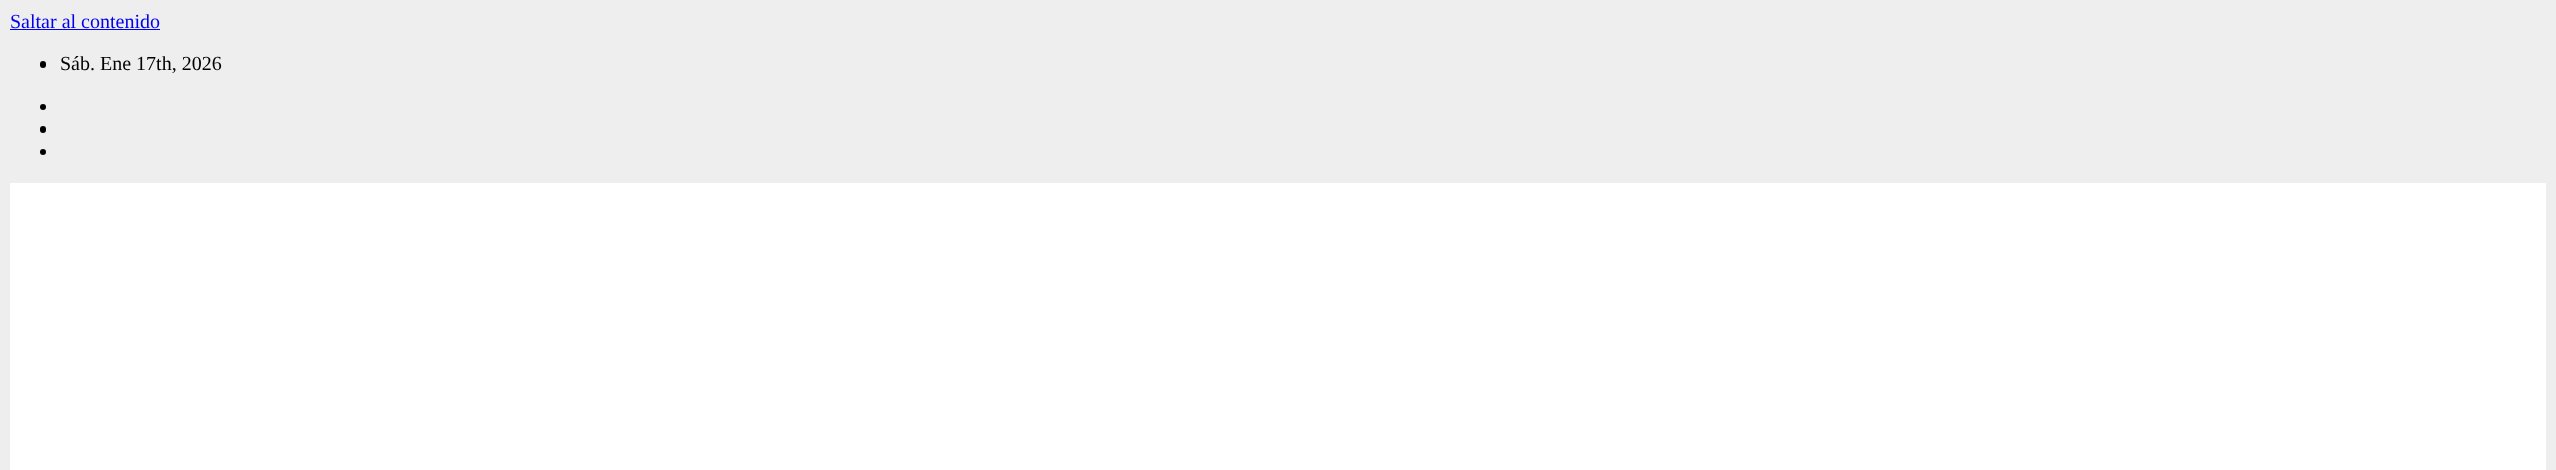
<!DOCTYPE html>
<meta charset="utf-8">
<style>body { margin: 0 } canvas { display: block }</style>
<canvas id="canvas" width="2556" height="470"></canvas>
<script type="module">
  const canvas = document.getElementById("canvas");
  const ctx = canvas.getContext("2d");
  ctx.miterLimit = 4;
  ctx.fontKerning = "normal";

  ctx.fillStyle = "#eeeeee";
  ctx.fillRect(0, 0, 2556, 470);
  ctx.font = "20px Liberation Serif";
  ctx.fillStyle = "#0000ee";
  ctx.fillText("Saltar al contenido", 10, 28);
  ctx.fillRect(10, 29, 150, 1);
  ctx.fillStyle = "#000000";
  ctx.beginPath();
  ctx.roundRect(40, 61, 6, 7, 3);
  ctx.fill();
  ctx.fillText("Sáb. Ene 17th, 2026", 60, 70);
  ctx.beginPath();
  ctx.arc(43, 107, 3, 0, Math.PI * 2);
  ctx.fill();
  ctx.beginPath();
  ctx.roundRect(40, 126, 6, 7, 3);
  ctx.fill();
  ctx.beginPath();
  ctx.arc(43, 152, 3, 0, Math.PI * 2);
  ctx.fill();
  ctx.fillStyle = "#ffffff";
  ctx.fillRect(10, 183, 2536, 287);
</script>
